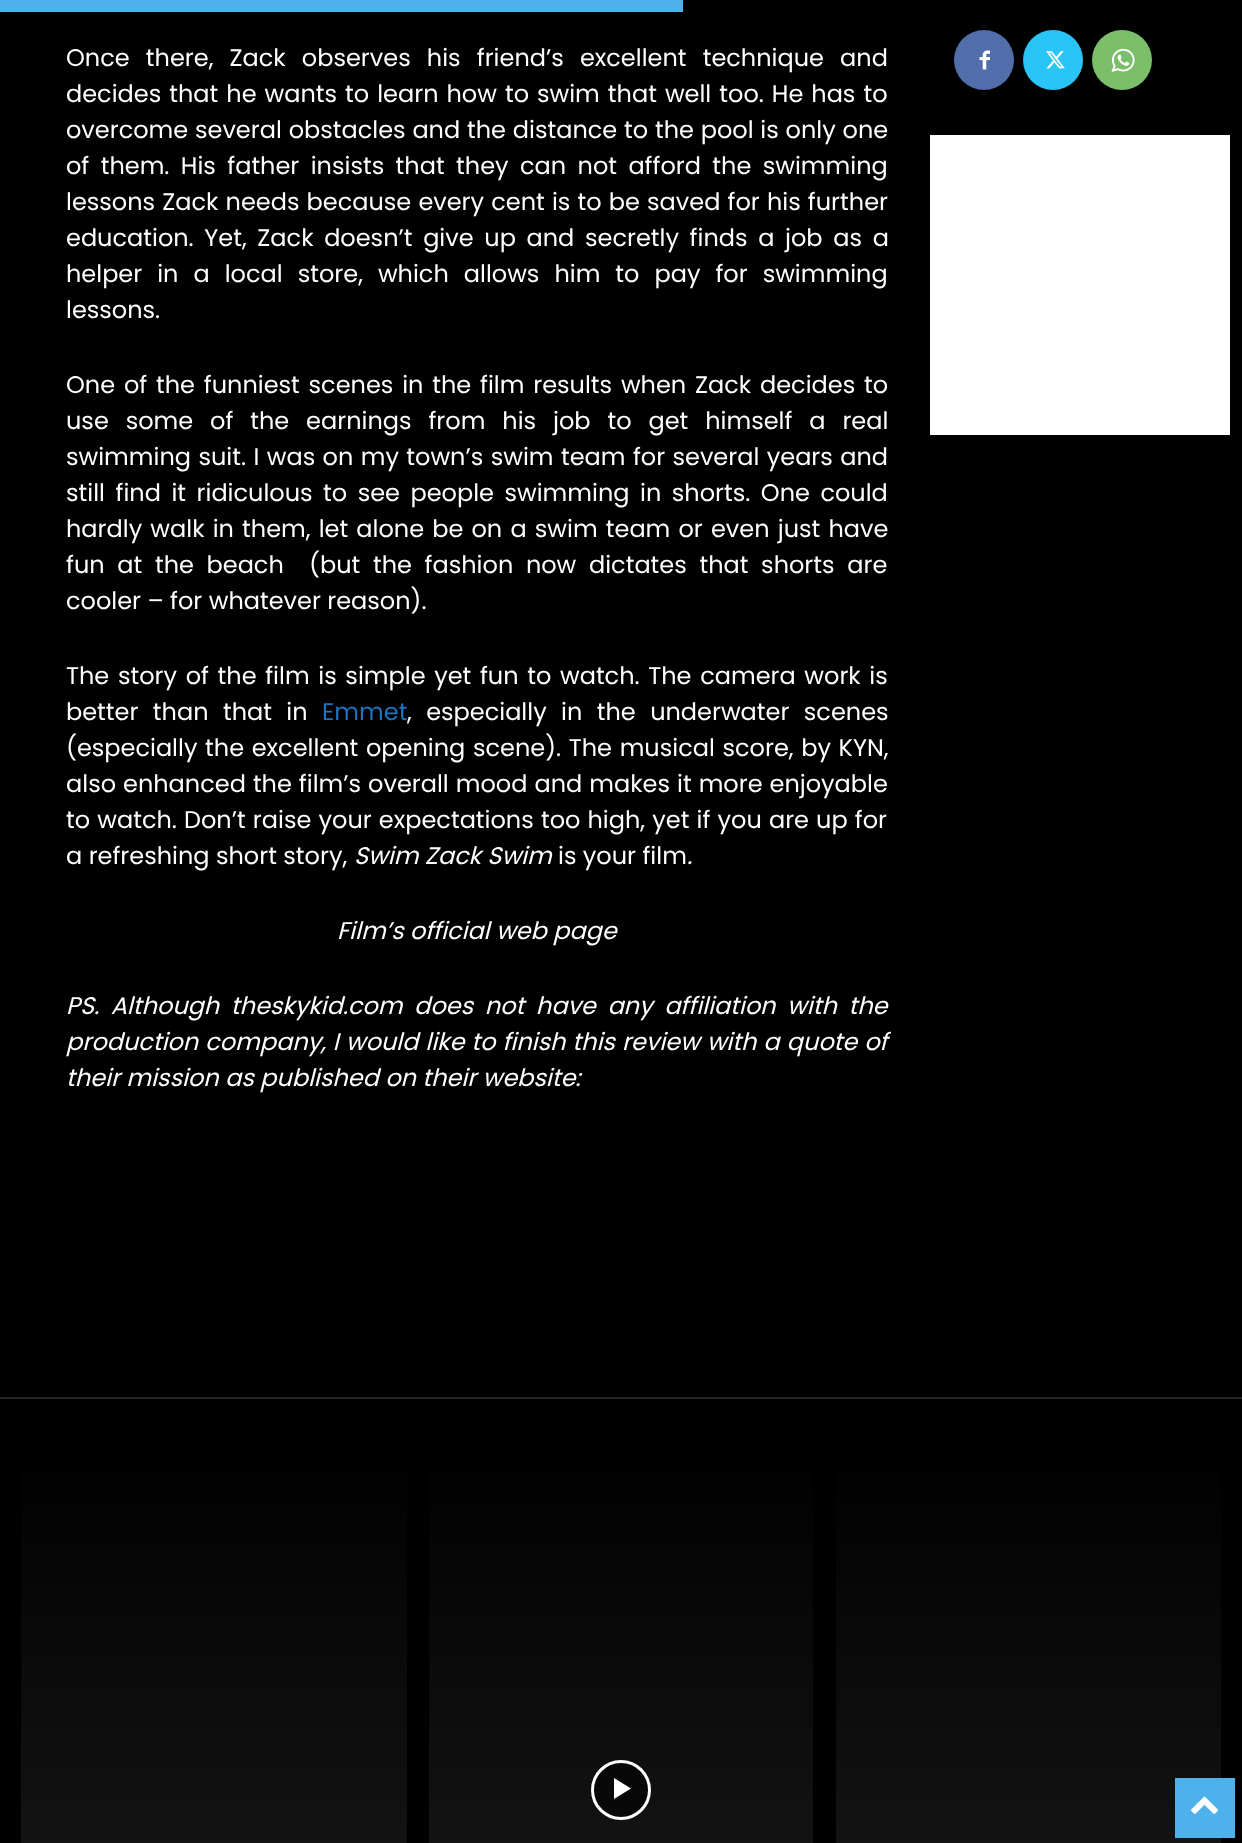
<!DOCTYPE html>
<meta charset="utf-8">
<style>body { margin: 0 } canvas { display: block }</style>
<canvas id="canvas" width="1242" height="1843"></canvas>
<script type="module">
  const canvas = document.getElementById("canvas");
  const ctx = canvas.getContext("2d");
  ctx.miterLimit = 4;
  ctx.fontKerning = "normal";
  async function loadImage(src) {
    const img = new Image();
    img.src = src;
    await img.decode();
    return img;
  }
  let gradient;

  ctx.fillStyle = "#000000";
  ctx.fillRect(0, 0, 1242, 1843);
  ctx.fillStyle = "#4db2ec";
  ctx.fillRect(0, 0, 683, 12);
  ctx.wordSpacing = "9.75px";
  ctx.font = "24px Poppins";
  ctx.fillStyle = "#ffffff";
  ctx.fillText("Once there, Zack observes his friend’s excellent technique and", 66, 66);
  ctx.wordSpacing = "1.6px";
  ctx.fillText("decides that he wants to learn how to swim that well too. He has to", 66, 102);
  ctx.wordSpacing = "0.4px";
  ctx.fillText("overcome several obstacles and the distance to the pool is only one", 66, 138);
  ctx.wordSpacing = "5px";
  ctx.fillText("of them. His father insists that they can not afford the swimming", 66, 174);
  ctx.wordSpacing = "0.75px";
  ctx.fillText("lessons Zack needs because every cent is to be saved for his further", 66, 210);
  ctx.wordSpacing = "4.25px";
  ctx.fillText("education. Yet, Zack doesn’t give up and secretly finds a job as a", 66, 246);
  ctx.wordSpacing = "8.6px";
  ctx.fillText("helper in a local store, which allows him to pay for swimming", 66, 282);
  ctx.wordSpacing = "0px";
  ctx.fillText("lessons.", 66, 318);
  ctx.wordSpacing = "2.4px";
  ctx.fillText("One of the funniest scenes in the film results when Zack decides to", 66, 393);
  ctx.wordSpacing = "10.5px";
  ctx.fillText("use some of the earnings from his job to get himself a real", 66, 429);
  ctx.wordSpacing = "1px";
  ctx.fillText("swimming suit. I was on my town’s swim team for several years and", 66, 465);
  ctx.wordSpacing = "4.1px";
  ctx.fillText("still find it ridiculous to see people swimming in shorts. One could", 66, 501);
  ctx.wordSpacing = "1.75px";
  ctx.fillText("hardly walk in them, let alone be on a swim team or even just have", 66, 537);
  ctx.wordSpacing = "6.25px";
  ctx.fillText("fun at the beach  (but the fashion now dictates that shorts are", 66, 573);
  ctx.wordSpacing = "0px";
  ctx.fillText("cooler – for whatever reason).", 66, 609);
  ctx.wordSpacing = "2.25px";
  ctx.fillText("The story of the film is simple yet fun to watch. The camera work is", 66, 684);
  ctx.wordSpacing = "8px";
  ctx.fillText("better than that in", 66, 720);
  ctx.wordSpacing = "0px";
  ctx.fillStyle = "#1e73be";
  ctx.fillText("Emmet", 322, 720);
  ctx.wordSpacing = "8px";
  ctx.fillStyle = "#ffffff";
  ctx.fillText(", especially in the underwater scenes", 407, 720);
  ctx.wordSpacing = "1.25px";
  ctx.fillText("(especially the excellent opening scene). The musical score, by KYN,", 66, 756);
  ctx.wordSpacing = "0.6px";
  ctx.fillText("also enhanced the film’s overall mood and makes it more enjoyable", 66, 792);
  ctx.wordSpacing = "0.75px";
  ctx.fillText("to watch. Don’t raise your expectations too high, yet if you are up for", 66, 828);
  ctx.wordSpacing = "0px";
  ctx.fillText("a refreshing short story,", 66, 864);
  ctx.font = "italic 24px Poppins";
  ctx.fillText("Swim Zack Swim", 354, 864);
  ctx.font = "24px Poppins";
  ctx.fillText("is your film", 558, 864);
  ctx.font = "italic 24px Poppins";
  ctx.fillText(".", 687, 864);
  ctx.fillText("Film’s official web page", 337, 939);
  ctx.wordSpacing = "5.25px";
  ctx.fillText("PS. Although theskykid.com does not have any affiliation with the", 66, 1014);
  ctx.wordSpacing = "0.6px";
  ctx.fillText("production company, I would like to finish this review with a quote of", 66, 1050);
  ctx.wordSpacing = "0px";
  ctx.fillText("their mission as published on their website:", 66, 1086);
  ctx.fillStyle = "#516eab";
  ctx.beginPath();
  ctx.arc(984, 60, 30, 0, Math.PI * 2);
  ctx.fill();
  ctx.drawImage(await loadImage("img1.png"), 979, 50, 11, 20);
  ctx.fillStyle = "#29c5f6";
  ctx.beginPath();
  ctx.arc(1053, 60, 30, 0, Math.PI * 2);
  ctx.fill();
  ctx.drawImage(await loadImage("img2.png"), 1046, 51, 19, 18);
  ctx.fillStyle = "#7bbf6a";
  ctx.beginPath();
  ctx.arc(1122, 60, 30, 0, Math.PI * 2);
  ctx.fill();
  ctx.drawImage(await loadImage("img3.png"), 1111, 48, 24, 24);
  ctx.fillStyle = "#ffffff";
  ctx.fillRect(930, 135, 300, 300);
  ctx.fillStyle = "#242424";
  ctx.fillRect(0, 1397, 1242, 2);
  gradient = ctx.createLinearGradient(214, 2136, 214, 1443);
  gradient.addColorStop(0, "#262626");
  gradient.addColorStop(0.3, "#171717");
  gradient.addColorStop(1, "#000000");
  ctx.fillStyle = gradient;
  ctx.beginPath();
  ctx.roundRect(21, 1443, 386, 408, 8);
  ctx.fill();
  gradient = ctx.createLinearGradient(621, 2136, 621, 1443);
  gradient.addColorStop(0, "#262626");
  gradient.addColorStop(0.3, "#171717");
  gradient.addColorStop(1, "#000000");
  ctx.fillStyle = gradient;
  ctx.beginPath();
  ctx.roundRect(429, 1443, 384, 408, 8);
  ctx.fill();
  ctx.fillStyle = "rgba(0, 0, 0, 0.48)";
  ctx.beginPath();
  ctx.arc(621, 1790, 28.5, 0, Math.PI * 2);
  ctx.fill();
  ctx.strokeStyle = "#ffffff";
  ctx.lineWidth = 3;
  ctx.stroke();
  ctx.fillStyle = "#ffffff";
  ctx.beginPath();
  ctx.moveTo(614, 1778);
  ctx.lineTo(614, 1799);
  ctx.lineTo(631, 1788.5);
  ctx.closePath();
  ctx.fill();
  gradient = ctx.createLinearGradient(1028, 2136, 1028, 1443);
  gradient.addColorStop(0, "#262626");
  gradient.addColorStop(0.3, "#171717");
  gradient.addColorStop(1, "#000000");
  ctx.fillStyle = gradient;
  ctx.beginPath();
  ctx.roundRect(836, 1443, 385, 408, 8);
  ctx.fill();
  ctx.fillStyle = "#4db2ec";
  ctx.fillRect(1175, 1778, 60, 60);
  ctx.drawImage(await loadImage("img4.png"), 1191, 1796, 27, 18);
</script>
